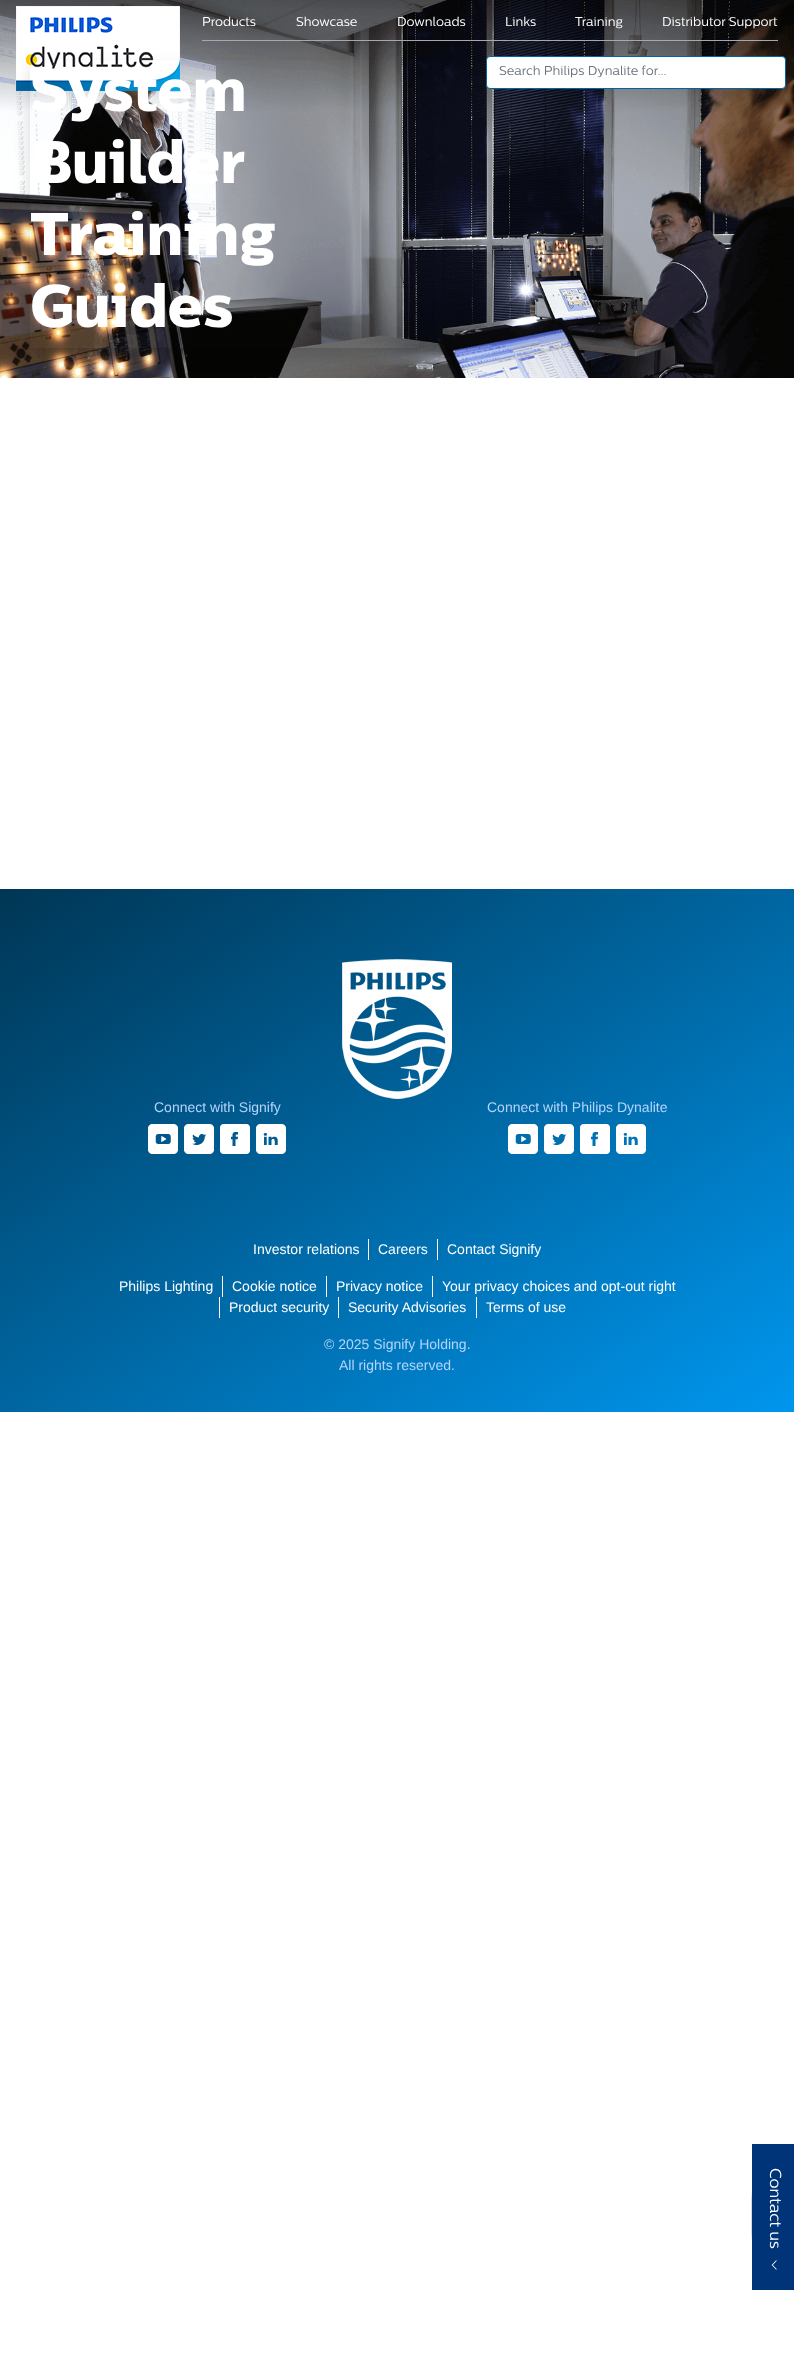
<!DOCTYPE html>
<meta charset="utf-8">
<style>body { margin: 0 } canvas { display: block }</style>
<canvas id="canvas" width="794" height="2372"></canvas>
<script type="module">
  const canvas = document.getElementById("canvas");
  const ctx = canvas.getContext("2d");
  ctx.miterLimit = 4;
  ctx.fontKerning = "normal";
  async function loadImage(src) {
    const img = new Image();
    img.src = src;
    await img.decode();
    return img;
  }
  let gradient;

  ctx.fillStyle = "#ffffff";
  ctx.fillRect(0, 0, 794, 2372);
  ctx.drawImage(await loadImage("img2.png"), 0, 0, 794, 378);
  ctx.drawImage(await loadImage("img1.png"), 16, 6, 164, 85);
  ctx.fillStyle = "#a5a8b3";
  ctx.fillRect(202, 40, 576, 1);
  ctx.font = "12.75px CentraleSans";
  ctx.fillStyle = "#ffffff";
  ctx.fillText("Products", 202, 26);
  ctx.fillText("Showcase", 296, 26);
  ctx.fillText("Downloads", 397, 26);
  ctx.fillText("Links", 505, 26);
  ctx.fillText("Training", 575, 26);
  ctx.fillText("Distributor Support", 662, 26);
  ctx.beginPath();
  ctx.roundRect(486.5, 56.5, 299, 32, 3.5);
  ctx.fill();
  ctx.strokeStyle = "#0066a1";
  ctx.stroke();
  ctx.fillStyle = "#6c757d";
  ctx.fillText("Search Philips Dynalite for...", 499, 75);
  ctx.save();
  ctx.beginPath();
  ctx.moveTo(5, 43);
  ctx.lineTo(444, 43);
  ctx.lineTo(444, 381);
  ctx.lineTo(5, 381);
  ctx.closePath();
  ctx.moveTo(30, 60);
  ctx.lineTo(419, 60);
  ctx.lineTo(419, 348);
  ctx.lineTo(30, 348);
  ctx.closePath();
  ctx.clip("evenodd");
  ctx.fillStyle = "rgba(0, 0, 0, 0.15)";
  ctx.filter = "blur(8px)";
  ctx.beginPath();
  ctx.rect(30, 68, 389, 288);
  ctx.fill();
  ctx.filter = "none";
  ctx.restore();
  ctx.font = "bold 60px CentraleSans";
  ctx.fillStyle = "#ffffff";
  ctx.fillText("System", 30, 111);
  ctx.fillText("Builder", 30, 183);
  ctx.fillText("Training", 30, 255);
  ctx.fillText("Guides", 30, 327);
  gradient = ctx.createLinearGradient(157, 786, 637, 1515);
  gradient.addColorStop(0, "#003655");
  gradient.addColorStop(0.5, "#0066a1");
  gradient.addColorStop(1, "#0096ee");
  ctx.fillStyle = gradient;
  ctx.fillRect(0, 889, 794, 523);
  ctx.drawImage(await loadImage("img3.png"), 342, 959, 110, 140);
  ctx.font = "14px Liberation Sans";
  ctx.fillStyle = "#b3d4fc";
  ctx.fillText("Connect with Signify", 154, 1112);
  ctx.drawImage(await loadImage("img4.png"), 148, 1124, 30, 30);
  ctx.drawImage(await loadImage("img5.png"), 184, 1124, 30, 30);
  ctx.drawImage(await loadImage("img6.png"), 220, 1124, 30, 30);
  ctx.drawImage(await loadImage("img7.png"), 256, 1124, 30, 30);
  ctx.fillText("Connect with Philips Dynalite", 487, 1112);
  ctx.drawImage(await loadImage("img8.png"), 508, 1124, 30, 30);
  ctx.drawImage(await loadImage("img9.png"), 544, 1124, 30, 30);
  ctx.drawImage(await loadImage("img10.png"), 580, 1124, 30, 30);
  ctx.drawImage(await loadImage("img11.png"), 616, 1124, 30, 30);
  ctx.fillStyle = "#ffffff";
  ctx.fillText("Investor relations", 253, 1254);
  ctx.fillRect(368, 1239, 1, 21);
  ctx.fillText("Careers", 378, 1254);
  ctx.fillRect(437, 1239, 1, 21);
  ctx.fillText("Contact Signify", 447, 1254);
  ctx.fillText("Philips Lighting", 119, 1291);
  ctx.fillRect(222, 1276, 1, 21);
  ctx.fillText("Cookie notice", 232, 1291);
  ctx.fillRect(326, 1276, 1, 21);
  ctx.fillText("Privacy notice", 336, 1291);
  ctx.fillRect(432, 1276, 1, 21);
  ctx.fillText("Your privacy choices and opt-out right", 442, 1291);
  ctx.fillRect(219, 1297, 1, 21);
  ctx.fillText("Product security", 229, 1312);
  ctx.fillRect(338, 1297, 1, 21);
  ctx.fillText("Security Advisories", 348, 1312);
  ctx.fillRect(476, 1297, 1, 21);
  ctx.fillText("Terms of use", 486, 1312);
  ctx.fillStyle = "#b3d4fc";
  ctx.fillText("© 2025 Signify Holding.", 324, 1349);
  ctx.fillText("All rights reserved.", 339, 1370);
  ctx.save();
  ctx.beginPath();
  ctx.rect(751, 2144, 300, 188);
  ctx.clip();
  ctx.fillStyle = "rgba(0, 0, 0, 0.15)";
  ctx.filter = "blur(2.5px)";
  ctx.beginPath();
  ctx.rect(699, 2195, 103, 42);
  ctx.fill();
  ctx.filter = "none";
  ctx.restore();
  ctx.fillStyle = "#003478";
  ctx.fillRect(752, 2144, 42, 146);
  ctx.font = "16px CentraleSans";
  ctx.fillStyle = "#ffffff";
  ctx.save();
  ctx.translate(770, 2168);
  ctx.rotate(90 * Math.PI / 180);
  ctx.fillText("Contact us", 0, 0);
  ctx.restore();
  ctx.drawImage(await loadImage("img12.png"), 771, 2260, 6, 10);
</script>
